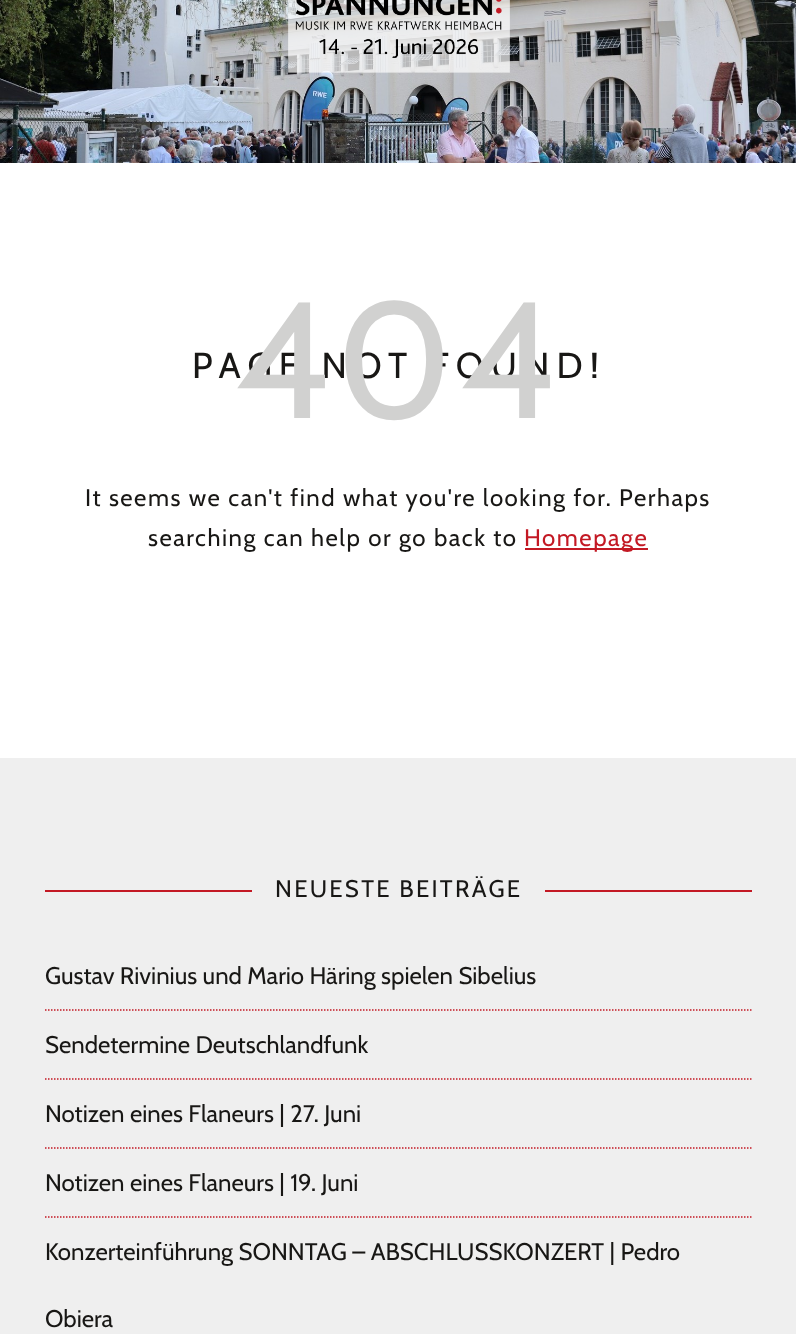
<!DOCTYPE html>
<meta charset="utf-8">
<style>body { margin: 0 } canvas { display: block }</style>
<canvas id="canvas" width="796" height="1334"></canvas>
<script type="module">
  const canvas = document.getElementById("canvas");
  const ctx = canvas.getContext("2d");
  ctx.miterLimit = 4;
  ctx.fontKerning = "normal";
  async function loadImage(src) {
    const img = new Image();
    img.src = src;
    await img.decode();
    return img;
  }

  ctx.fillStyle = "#ffffff";
  ctx.fillRect(0, 0, 796, 1334);
  ctx.drawImage(await loadImage("img1.png"), 0, 0, 796, 163);
  ctx.drawImage(await loadImage("img2.png"), 288, 0, 222, 73);
  ctx.letterSpacing = "7.25px";
  ctx.font = "36px Cabin";
  ctx.fillStyle = "#181715";
  ctx.fillText("PAGE NOT FOUND!", 192, 378);
  ctx.font = "165px Cabin";
  ctx.fillStyle = "#d1d1d0";
  ctx.fillText("404", 234, 418);
  ctx.letterSpacing = "1.5px";
  ctx.font = "24px Cabin";
  ctx.fillStyle = "#181715";
  ctx.fillText("It seems we can't find what you're looking for. Perhaps", 85, 506);
  ctx.fillText("searching can help or go back to", 148, 546);
  ctx.fillStyle = "#c31924";
  ctx.fillRect(525, 548, 123, 2);
  ctx.fillText("Homepage", 524, 546);
  ctx.fillStyle = "#efefef";
  ctx.fillRect(0, 758, 796, 576);
  ctx.fillStyle = "#c31924";
  ctx.fillRect(45, 890, 207, 2);
  ctx.letterSpacing = "2.25px";
  ctx.fillStyle = "#181715";
  ctx.fillText("NEUESTE BEITRÄGE", 275, 897);
  ctx.fillStyle = "#c31924";
  ctx.fillRect(545, 890, 207, 2);
  ctx.beginPath();
  ctx.moveTo(45, 1010);
  ctx.lineTo(751.5, 1010);
  ctx.strokeStyle = "#c31924";
  ctx.lineWidth = 1.5;
  ctx.setLineDash([1.5, 1.5]);
  ctx.stroke();
  ctx.letterSpacing = "0px";
  ctx.fillStyle = "#181715";
  ctx.fillText("Gustav Rivinius und Mario Häring spielen Sibelius", 45, 984);
  ctx.beginPath();
  ctx.moveTo(45, 1079);
  ctx.lineTo(751.5, 1079);
  ctx.stroke();
  ctx.fillText("Sendetermine Deutschlandfunk", 45, 1053);
  ctx.beginPath();
  ctx.moveTo(45, 1148);
  ctx.lineTo(751.5, 1148);
  ctx.stroke();
  ctx.fillText("Notizen eines Flaneurs | 27. Juni", 45, 1122);
  ctx.beginPath();
  ctx.moveTo(45, 1217);
  ctx.lineTo(751.5, 1217);
  ctx.stroke();
  ctx.fillText("Notizen eines Flaneurs | 19. Juni", 45, 1191);
  ctx.fillText("Konzerteinführung SONNTAG – ABSCHLUSSKONZERT | Pedro", 45, 1260);
  ctx.fillText("Obiera", 45, 1327);
</script>
